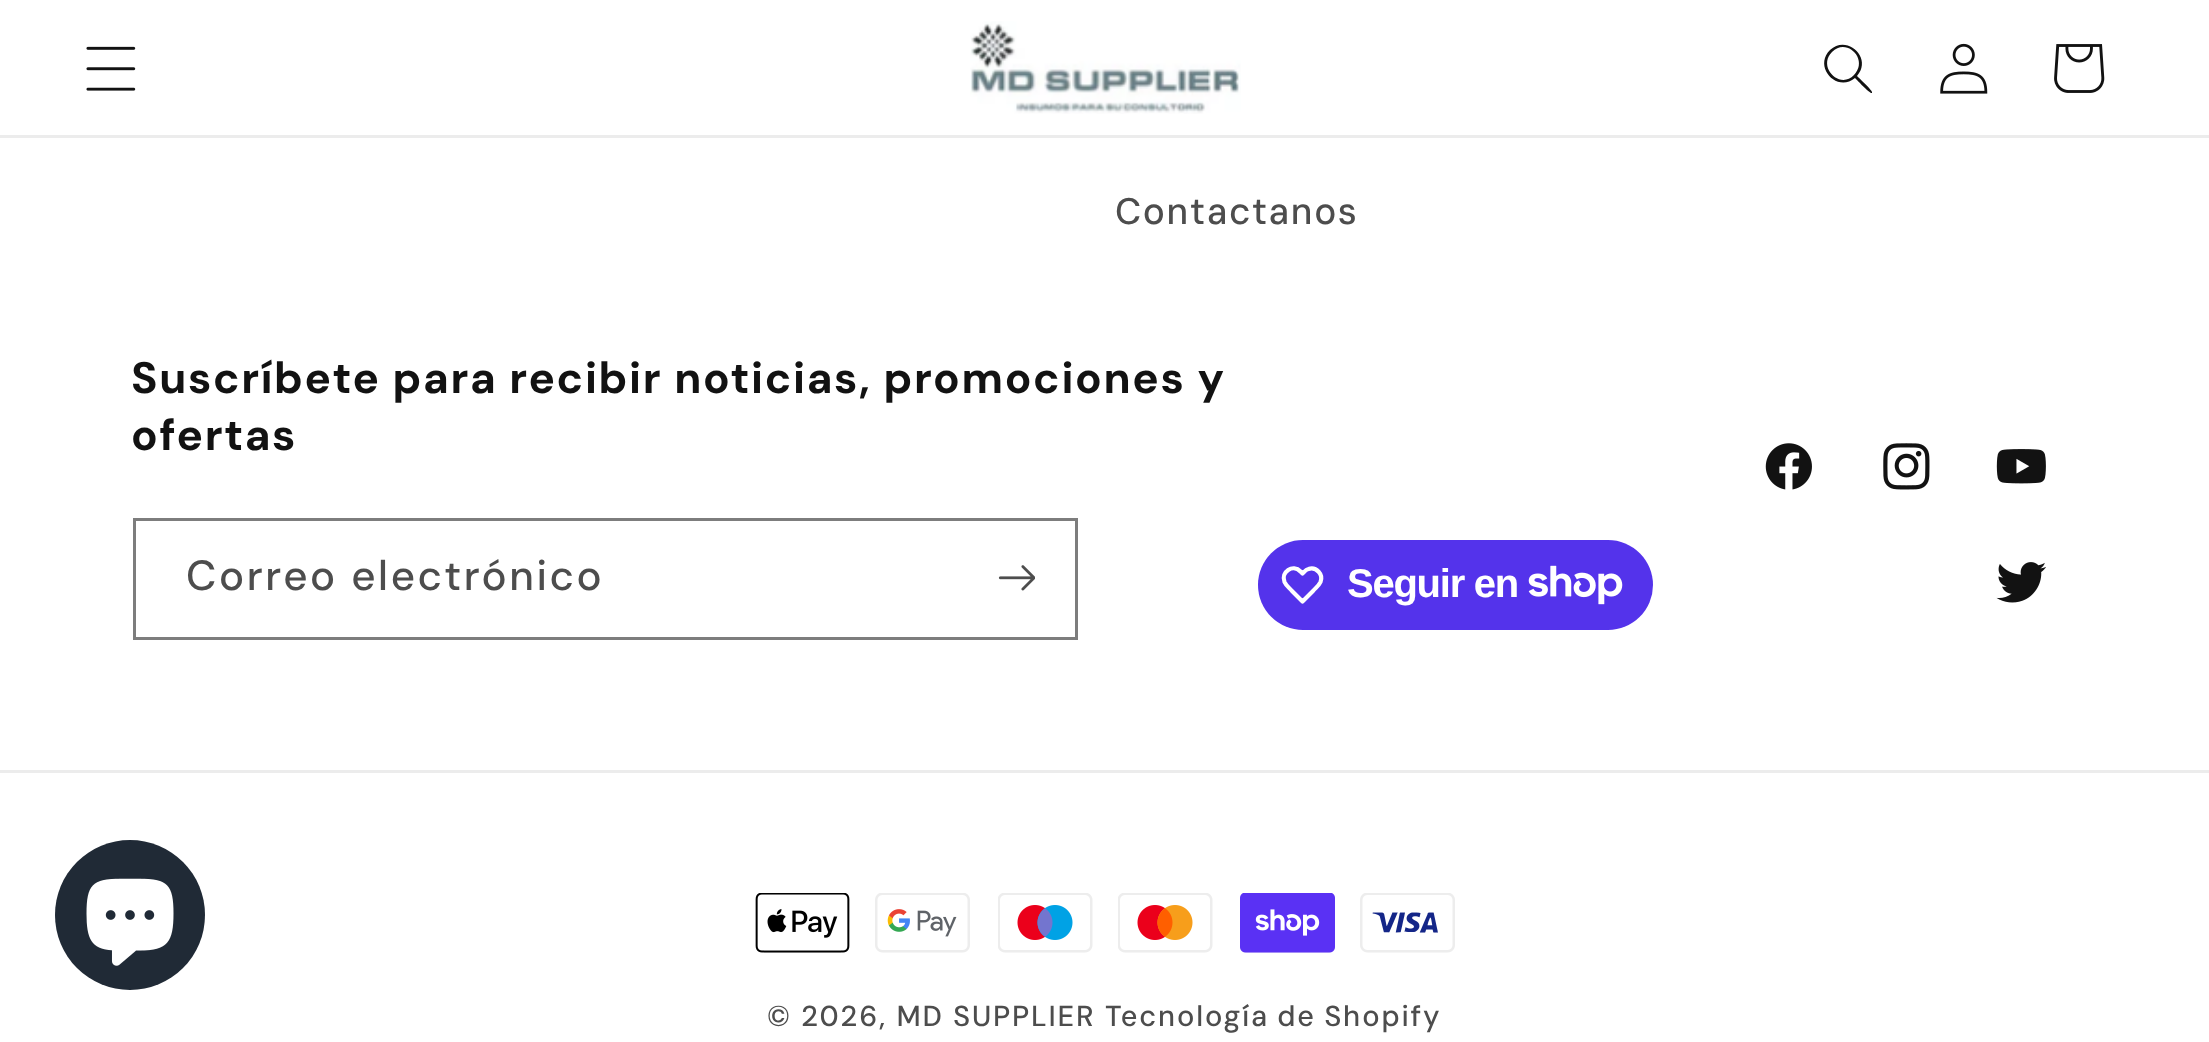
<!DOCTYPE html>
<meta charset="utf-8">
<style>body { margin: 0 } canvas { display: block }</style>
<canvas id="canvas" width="2209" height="1042"></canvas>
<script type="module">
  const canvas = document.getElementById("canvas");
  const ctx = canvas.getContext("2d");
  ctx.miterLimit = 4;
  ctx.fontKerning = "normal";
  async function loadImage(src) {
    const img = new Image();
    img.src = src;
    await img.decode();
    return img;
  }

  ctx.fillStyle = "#ffffff";
  ctx.fillRect(0, 0, 2209, 1042);
  ctx.fillStyle = "#ececec";
  ctx.fillRect(0, 135, 2209, 3);
  ctx.drawImage(await loadImage("img1.png"), 86, 46, 50, 45);
  ctx.drawImage(await loadImage("img2.png"), 970, 21, 271, 93);
  ctx.fillStyle = "#121212";
  ctx.beginPath();
  ctx.moveTo(1854, 75);
  ctx.bezierCurveTo(1840, 90, 1817, 67, 1832, 52);
  ctx.bezierCurveTo(1847, 37, 1869, 60, 1854, 75);
  ctx.closePath();
  ctx.moveTo(1855, 78);
  ctx.bezierCurveTo(1837, 93, 1813, 67, 1830, 50);
  ctx.bezierCurveTo(1847, 34, 1873, 58, 1857, 76);
  ctx.bezierCurveTo(1859, 78, 1872, 90, 1872, 92);
  ctx.lineTo(1872, 93);
  ctx.bezierCurveTo(1870, 94, 1857, 80, 1855, 78);
  ctx.closePath();
  ctx.fill("evenodd");
  ctx.drawImage(await loadImage("img3.png"), 1940, 43, 48, 51);
  ctx.drawImage(await loadImage("img4.png"), 2054, 44, 51, 49);
  ctx.fillStyle = "#202a36";
  ctx.beginPath();
  ctx.arc(130, 915, 75, 0, Math.PI * 2);
  ctx.fill();
  ctx.drawImage(await loadImage("img5.png"), 86, 878, 88, 88);
  ctx.letterSpacing = "1.5px";
  ctx.font = "500 36.75px DM Sans";
  ctx.fillStyle = "#4d4d4d";
  ctx.fillText("Contactanos", 1115, 224);
  ctx.letterSpacing = "1.65px";
  ctx.font = "bold 44px DM Sans";
  ctx.fillStyle = "#121212";
  ctx.fillText("Suscríbete para recibir noticias, promociones y", 131, 393);
  ctx.fillText("ofertas", 131, 450);
  ctx.strokeStyle = "#7d7d7d";
  ctx.lineWidth = 3;
  ctx.strokeRect(134.5, 519.5, 942, 119);
  ctx.letterSpacing = "2.6px";
  ctx.font = "500 42px 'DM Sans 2'";
  ctx.fillStyle = "#4d4d4d";
  ctx.fillText("Correo electrónico", 186, 590);
  ctx.drawImage(await loadImage("img6.png"), 998, 565, 37, 26);
  ctx.fillStyle = "#5433eb";
  ctx.beginPath();
  ctx.roundRect(1258, 540, 395, 90, 45);
  ctx.fill();
  ctx.beginPath();
  ctx.moveTo(1300.5, 571.5);
  ctx.lineTo(1302.5, 573.5);
  ctx.bezierCurveTo(1304.5, 571.5, 1306, 569.5, 1308.5, 569);
  ctx.bezierCurveTo(1316.5, 566.5, 1323.5, 574.5, 1320.5, 582);
  ctx.bezierCurveTo(1319, 585.5, 1315.5, 588, 1313, 591);
  ctx.lineTo(1302.5, 601.5);
  ctx.lineTo(1292, 591);
  ctx.bezierCurveTo(1289.5, 588, 1286, 585.5, 1284.5, 582);
  ctx.bezierCurveTo(1280.5, 572, 1293, 563.5, 1300.5, 571.5);
  ctx.closePath();
  ctx.strokeStyle = "#ffffff";
  ctx.lineWidth = 4.2;
  ctx.lineJoin = "round";
  ctx.stroke();
  ctx.letterSpacing = "-1.25px";
  ctx.font = "bold 40px Liberation Sans";
  ctx.fillStyle = "#ffffff";
  ctx.fillText("Seguir en", 1347, 597);
  ctx.drawImage(await loadImage("img7.png"), 1528, 565, 95, 40);
  ctx.drawImage(await loadImage("img8.png"), 1765, 443, 47, 47);
  ctx.drawImage(await loadImage("img9.png"), 1883, 443, 47, 47);
  ctx.drawImage(await loadImage("img10.png"), 1996, 449, 50, 35);
  ctx.drawImage(await loadImage("img11.png"), 1996, 562, 50, 41);
  ctx.fillStyle = "#ececec";
  ctx.fillRect(0, 770, 2209, 3);
  ctx.drawImage(await loadImage("img12.png"), 755, 893, 95, 60);
  ctx.drawImage(await loadImage("img13.png"), 875, 893, 95, 60);
  ctx.drawImage(await loadImage("img14.png"), 998, 893, 95, 60);
  ctx.drawImage(await loadImage("img15.png"), 1118, 893, 95, 60);
  ctx.drawImage(await loadImage("img16.png"), 1240, 893, 95, 60);
  ctx.drawImage(await loadImage("img17.png"), 1360, 893, 95, 60);
  ctx.letterSpacing = "1.8px";
  ctx.font = "500 28.9px DM Sans";
  ctx.fillStyle = "#4d4d4d";
  ctx.fillText("© 2026, MD SUPPLIER", 767, 1026);
  ctx.wordSpacing = "-1px";
  ctx.fillText("Tecnología de Shopify", 1105, 1026);
</script>
